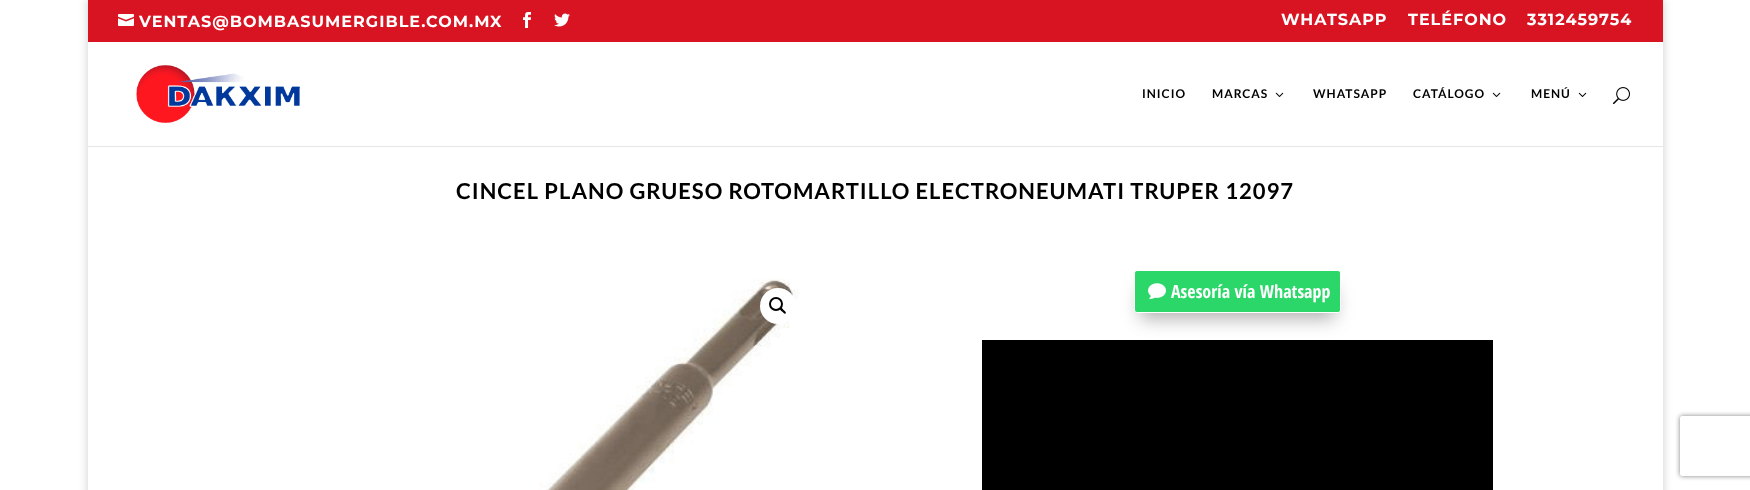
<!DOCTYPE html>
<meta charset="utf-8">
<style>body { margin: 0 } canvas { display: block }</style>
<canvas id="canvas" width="1750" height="490"></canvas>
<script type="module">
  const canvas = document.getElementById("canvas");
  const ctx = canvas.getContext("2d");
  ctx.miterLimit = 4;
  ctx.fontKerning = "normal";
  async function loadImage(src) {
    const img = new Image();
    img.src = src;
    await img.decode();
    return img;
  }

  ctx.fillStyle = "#ffffff";
  ctx.fillRect(0, 0, 1750, 490);
  ctx.save();
  ctx.beginPath();
  ctx.moveTo(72, 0);
  ctx.lineTo(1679, 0);
  ctx.lineTo(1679, 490);
  ctx.lineTo(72, 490);
  ctx.closePath();
  ctx.moveTo(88, -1);
  ctx.lineTo(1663, -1);
  ctx.lineTo(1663, 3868);
  ctx.lineTo(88, 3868);
  ctx.closePath();
  ctx.clip("evenodd");
  ctx.fillStyle = "rgba(0, 0, 0, 0.2)";
  ctx.filter = "blur(5px)";
  ctx.beginPath();
  ctx.rect(88, -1, 1575, 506);
  ctx.fill();
  ctx.filter = "none";
  ctx.restore();
  ctx.fillStyle = "#d91422";
  ctx.fillRect(88, 0, 1575, 42);
  ctx.drawImage(await loadImage("img1.png"), 118, 14, 16, 12);
  ctx.letterSpacing = "1px";
  ctx.font = "bold 16px Montserrat";
  ctx.fillStyle = "#ffffff";
  ctx.fillText("VENTAS@BOMBASUMERGIBLE.COM.MX", 139, 27);
  ctx.drawImage(await loadImage("img2.png"), 523, 12, 8, 16);
  ctx.drawImage(await loadImage("img3.png"), 554, 13, 16, 14);
  ctx.fillText("WHATSAPP", 1281, 25);
  ctx.fillText("TELÉFONO", 1408, 25);
  ctx.fillText("3312459754", 1527, 25);
  ctx.fillStyle = "#e6e6e6";
  ctx.fillRect(88, 146, 1575, 1);
  ctx.drawImage(await loadImage("img4.png"), 136, 65, 164, 58);
  ctx.font = "bold 12px Lato";
  ctx.fillStyle = "#000000";
  ctx.fillText("INICIO", 1142, 98);
  ctx.fillText("MARCAS", 1212, 98);
  ctx.drawImage(await loadImage("img5.png"), 1275, 92, 9, 5);
  ctx.fillText("WHATSAPP", 1313, 98);
  ctx.fillText("CATÁLOGO", 1413, 98);
  ctx.drawImage(await loadImage("img5.png"), 1492, 92, 9, 5);
  ctx.fillText("MENÚ", 1531, 98);
  ctx.drawImage(await loadImage("img5.png"), 1578, 92, 9, 5);
  ctx.drawImage(await loadImage("img6.png"), 1613, 87, 17, 18);
  ctx.font = "bold 22px Lato";
  ctx.fillText("CINCEL PLANO GRUESO ROTOMARTILLO ELECTRONEUMATI TRUPER 12097", 456, 199);
  ctx.drawImage(await loadImage("img7.png"), 539, 278, 260, 212);
  ctx.fillStyle = "#ffffff";
  ctx.beginPath();
  ctx.arc(778, 306, 18, 0, Math.PI * 2);
  ctx.fill();
  ctx.beginPath();
  ctx.arc(776, 304, 6, 0, Math.PI * 2);
  ctx.strokeStyle = "#000000";
  ctx.lineWidth = 2;
  ctx.stroke();
  ctx.fillStyle = "#000000";
  ctx.beginPath();
  ctx.moveTo(780, 308);
  ctx.bezierCurveTo(781, 306.5, 783, 309.5, 783.5, 310);
  ctx.bezierCurveTo(784, 310.5, 787, 312.5, 785.5, 313.5);
  ctx.bezierCurveTo(784.5, 314.5, 783, 312, 782, 311.5);
  ctx.bezierCurveTo(781.5, 311, 779, 309, 780, 308);
  ctx.closePath();
  ctx.fill();
  ctx.fillStyle = "rgba(0, 0, 0, 0.3)";
  ctx.filter = "blur(9px)";
  ctx.beginPath();
  ctx.rect(1140, 288, 195, 31);
  ctx.fill();
  ctx.filter = "none";
  ctx.fillStyle = "#2bd769";
  ctx.beginPath();
  ctx.roundRect(1134.5, 270.5, 206, 42, 2.5);
  ctx.fill();
  ctx.strokeStyle = "#ffffff";
  ctx.lineWidth = 1;
  ctx.stroke();
  ctx.drawImage(await loadImage("img8.png"), 1148, 283, 18, 16);
  ctx.letterSpacing = "0px";
  ctx.font = "bold 18px Open Sans Condensed";
  ctx.fillStyle = "#ffffff";
  ctx.fillText("Asesoría vía Whatsapp", 1171, 298);
  ctx.fillStyle = "#000000";
  ctx.fillRect(982, 340, 511, 150);
  ctx.save();
  ctx.beginPath();
  ctx.moveTo(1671, 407);
  ctx.lineTo(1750, 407);
  ctx.lineTo(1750, 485);
  ctx.lineTo(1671, 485);
  ctx.closePath();
  ctx.moveTo(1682, 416);
  ctx.lineTo(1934, 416);
  ctx.bezierCurveTo(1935, 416, 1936, 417, 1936, 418);
  ctx.lineTo(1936, 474);
  ctx.bezierCurveTo(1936, 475, 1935, 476, 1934, 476);
  ctx.lineTo(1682, 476);
  ctx.bezierCurveTo(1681, 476, 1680, 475, 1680, 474);
  ctx.lineTo(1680, 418);
  ctx.bezierCurveTo(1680, 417, 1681, 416, 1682, 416);
  ctx.closePath();
  ctx.clip("evenodd");
  ctx.fillStyle = "#808080";
  ctx.filter = "blur(2.5px)";
  ctx.beginPath();
  ctx.roundRect(1680, 416, 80, 60, 2);
  ctx.fill();
  ctx.filter = "none";
  ctx.restore();
</script>
